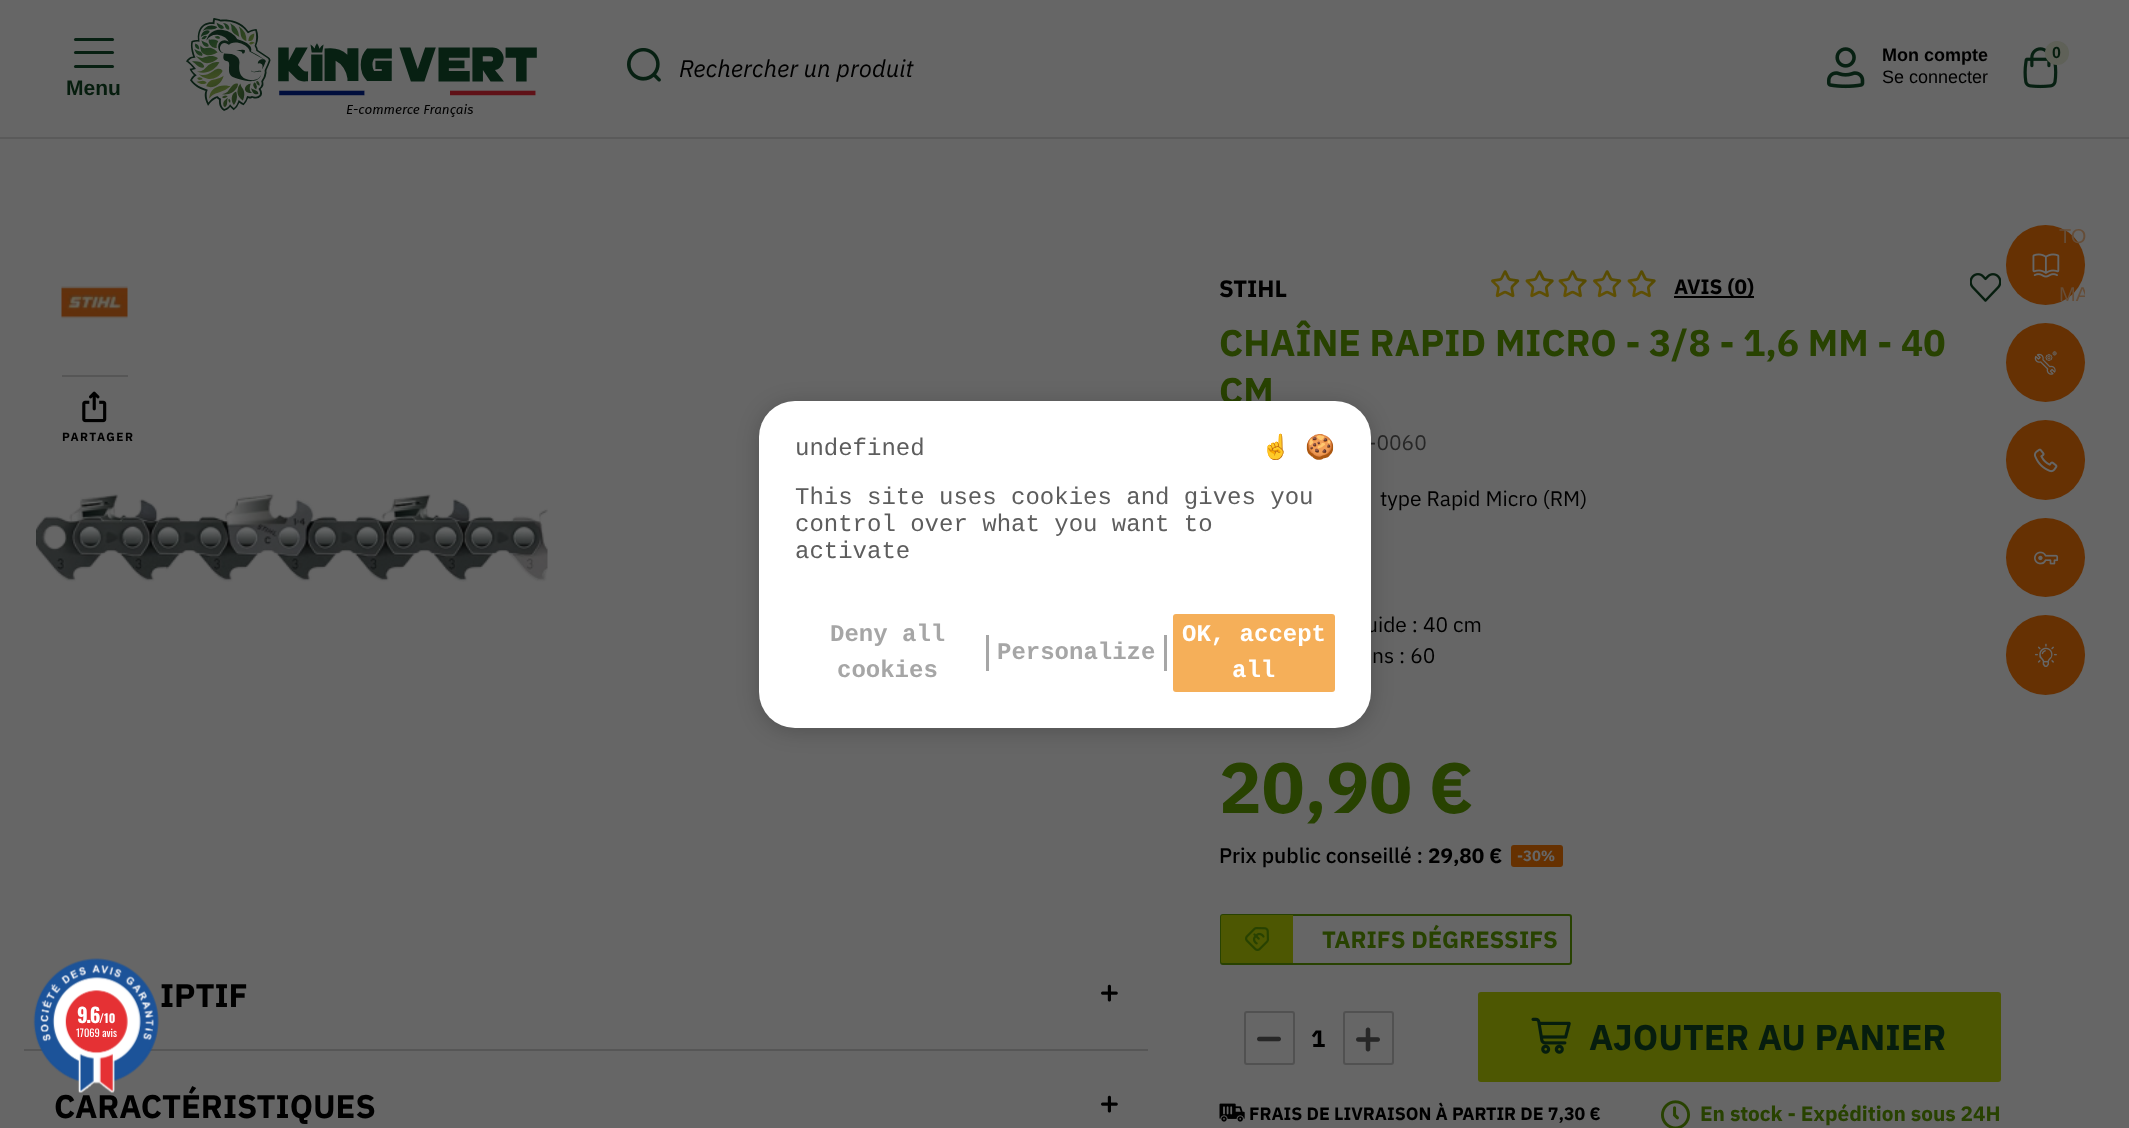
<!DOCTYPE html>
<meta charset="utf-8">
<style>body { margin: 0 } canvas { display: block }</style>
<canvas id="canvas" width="2129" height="1128"></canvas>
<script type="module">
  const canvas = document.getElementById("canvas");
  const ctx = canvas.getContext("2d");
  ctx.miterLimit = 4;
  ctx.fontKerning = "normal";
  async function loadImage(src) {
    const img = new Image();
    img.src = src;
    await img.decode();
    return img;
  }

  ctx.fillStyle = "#666666";
  ctx.fillRect(0, 0, 2129, 1128);
  ctx.fillStyle = "#5a5a5a";
  ctx.fillRect(0, 137, 2129, 2);
  ctx.drawImage(await loadImage("img1.png"), 186, 18, 351, 99);
  ctx.drawImage(await loadImage("img2.png"), 627, 48, 34, 34);
  ctx.font = "italic 24px IBM Plex Sans";
  ctx.fillStyle = "#000000";
  ctx.fillText("Rechercher un produit", 679, 77);
  ctx.fillStyle = "#072012";
  ctx.beginPath();
  ctx.roundRect(74, 38, 40, 3, 1.5);
  ctx.fill();
  ctx.beginPath();
  ctx.roundRect(74, 51, 40, 3, 1.5);
  ctx.fill();
  ctx.beginPath();
  ctx.roundRect(74, 65, 40, 3, 1.5);
  ctx.fill();
  ctx.font = "bold 21px Liberation Sans";
  ctx.fillStyle = "#061d0e";
  ctx.fillText("Menu", 66, 95);
  ctx.drawImage(await loadImage("img3.png"), 1827, 47, 38, 42);
  ctx.font = "bold 18px Liberation Sans";
  ctx.fillStyle = "#000000";
  ctx.fillText("Mon compte", 1882, 61);
  ctx.font = "18px Liberation Sans";
  ctx.fillText("Se connecter", 1882, 83);
  ctx.drawImage(await loadImage("img4.png"), 2023, 47, 35, 42);
  ctx.fillStyle = "#5f6158";
  ctx.beginPath();
  ctx.arc(2057, 53, 12, 0, Math.PI * 2);
  ctx.fill();
  ctx.font = "bold 16px Liberation Sans";
  ctx.fillStyle = "#061d0e";
  ctx.fillText("0", 2052, 58);
  ctx.fillStyle = "#663103";
  ctx.beginPath();
  ctx.roundRect(2006, 225, 79, 80, 39.5);
  ctx.fill();
  ctx.drawImage(await loadImage("img5.png"), 2032, 253, 28, 25);
  ctx.font = "20px Liberation Sans";
  ctx.fillStyle = "#664d37";
  ctx.fillText("TO", 2059, 243);
  ctx.save();
  ctx.beginPath();
  ctx.rect(2006, 225, 79, 80);
  ctx.clip();
  ctx.fillText("MA", 2059, 301);
  ctx.restore();
  ctx.fillStyle = "#663103";
  ctx.beginPath();
  ctx.arc(2045.5, 362.5, 39.5, 0, Math.PI * 2);
  ctx.fill();
  ctx.drawImage(await loadImage("img6.png"), 2034, 351, 23, 24);
  ctx.beginPath();
  ctx.roundRect(2006, 420, 79, 80, 39.5);
  ctx.fill();
  ctx.drawImage(await loadImage("img7.png"), 2033, 448, 25, 25);
  ctx.beginPath();
  ctx.arc(2045.5, 557.5, 39.5, 0, Math.PI * 2);
  ctx.fill();
  ctx.drawImage(await loadImage("img8.png"), 2034, 551, 25, 14);
  ctx.beginPath();
  ctx.roundRect(2006, 615, 79, 80, 39.5);
  ctx.fill();
  ctx.drawImage(await loadImage("img9.png"), 2035, 643, 22, 24);
  ctx.drawImage(await loadImage("img10.png"), 61, 286, 67, 33);
  ctx.fillStyle = "#565656";
  ctx.fillRect(62, 375, 66, 2);
  ctx.drawImage(await loadImage("img11.png"), 82, 391, 25, 32);
  ctx.letterSpacing = "1.5px";
  ctx.font = "bold 12px IBM Plex Sans";
  ctx.fillStyle = "#000000";
  ctx.fillText("PARTAGER", 62, 441);
  ctx.drawImage(await loadImage("img12.png"), 36, 493, 512, 89);
  ctx.fillStyle = "#565656";
  ctx.fillRect(24, 1049, 1124, 2);
  ctx.letterSpacing = "0px";
  ctx.font = "bold 33px IBM Plex Sans";
  ctx.fillStyle = "#000000";
  ctx.fillText("IPTIF", 160, 1007);
  ctx.drawImage(await loadImage("img13.png"), 1101, 984, 17, 18);
  ctx.fillText("CARACTÉRISTIQUES", 54, 1118);
  ctx.drawImage(await loadImage("img13.png"), 1101, 1095, 17, 18);
  ctx.font = "bold 24px IBM Plex Sans";
  ctx.fillText("STIHL", 1219, 297);
  ctx.drawImage(await loadImage("img14.png"), 1491, 270, 29, 28);
  ctx.drawImage(await loadImage("img15.png"), 1525, 270, 29, 28);
  ctx.drawImage(await loadImage("img16.png"), 1558, 270, 29, 28);
  ctx.drawImage(await loadImage("img17.png"), 1593, 270, 29, 28);
  ctx.drawImage(await loadImage("img18.png"), 1627, 270, 29, 28);
  ctx.fillRect(1674, 296, 80, 2);
  ctx.font = "bold 21px IBM Plex Sans";
  ctx.fillText("AVIS (0)", 1674, 294);
  ctx.drawImage(await loadImage("img19.png"), 1970, 273, 31, 29);
  ctx.font = "bold 37.5px IBM Plex Sans";
  ctx.fillStyle = "#284201";
  ctx.fillText("CHAÎNE RAPID MICRO - 3/8 - 1,6 MM - 40", 1219, 356);
  ctx.fillText("CM", 1219, 404);
  ctx.font = "21px IBM Plex Sans";
  ctx.fillStyle = "#272727";
  ctx.fillText("-0060", 1368, 450);
  ctx.fillStyle = "#000000";
  ctx.fillText("type Rapid Micro (RM)", 1380, 506);
  ctx.fillText("uide : 40 cm", 1366, 632);
  ctx.fillText("ns : 60", 1372, 663);
  ctx.font = "bold 72px IBM Plex Sans";
  ctx.fillStyle = "#284201";
  ctx.fillText("20,90 €", 1219, 813);
  ctx.font = "500 21px IBM Plex Sans";
  ctx.fillStyle = "#000000";
  ctx.fillText("Prix public conseillé :", 1219, 863);
  ctx.font = "bold 21px IBM Plex Sans";
  ctx.fillText("29,80 €", 1428, 863);
  ctx.fillStyle = "#663101";
  ctx.beginPath();
  ctx.roundRect(1511, 845, 52, 22, 3);
  ctx.fill();
  ctx.font = "bold 15px IBM Plex Sans";
  ctx.fillStyle = "#666666";
  ctx.fillText("-30%", 1517, 861);
  ctx.beginPath();
  ctx.roundRect(1221, 915, 350, 49, 2);
  ctx.strokeStyle = "#284201";
  ctx.lineWidth = 2;
  ctx.stroke();
  ctx.fillStyle = "#4d5702";
  ctx.beginPath();
  ctx.roundRect(1221, 915, 72, 48, [1.5, 0, 0, 1.5]);
  ctx.fill();
  ctx.drawImage(await loadImage("img20.png"), 1245, 927, 24, 24);
  ctx.font = "bold 24px IBM Plex Sans";
  ctx.fillStyle = "#284201";
  ctx.fillText("TARIFS DÉGRESSIFS", 1322, 948);
  ctx.beginPath();
  ctx.roundRect(1245, 1012, 49, 52, 2);
  ctx.strokeStyle = "#515151";
  ctx.stroke();
  ctx.drawImage(await loadImage("img21.png"), 1257, 1036, 24, 6);
  ctx.fillStyle = "#000000";
  ctx.fillText("1", 1311, 1047);
  ctx.beginPath();
  ctx.roundRect(1344, 1012, 49, 52, 2);
  ctx.stroke();
  ctx.drawImage(await loadImage("img22.png"), 1356, 1027, 24, 25);
  ctx.fillStyle = "#4d5702";
  ctx.beginPath();
  ctx.roundRect(1478, 992, 523, 90, 3);
  ctx.fill();
  ctx.drawImage(await loadImage("img23.png"), 1531, 1017, 40, 37);
  ctx.font = "bold 36px IBM Plex Sans";
  ctx.fillStyle = "#061d0e";
  ctx.fillText("AJOUTER AU PANIER", 1589, 1050);
  ctx.drawImage(await loadImage("img24.png"), 1219, 1103, 26, 19);
  ctx.font = "bold 18px IBM Plex Sans";
  ctx.fillStyle = "#000000";
  ctx.fillText("FRAIS DE LIVRAISON À PARTIR DE 7,30 €", 1249, 1120);
  ctx.drawImage(await loadImage("img25.png"), 1661, 1100, 29, 28);
  ctx.font = "bold 21px IBM Plex Sans";
  ctx.fillStyle = "#284201";
  ctx.fillText("En stock - Expédition sous 24H", 1700, 1121);
  ctx.fillStyle = "rgba(0, 0, 0, 0.2)";
  ctx.filter = "blur(10.5px)";
  ctx.beginPath();
  ctx.roundRect(759, 404, 612, 327, 36);
  ctx.fill();
  ctx.filter = "none";
  ctx.fillStyle = "#ffffff";
  ctx.beginPath();
  ctx.roundRect(759, 401, 612, 327, 36);
  ctx.fill();
  ctx.font = "24px Liberation Mono";
  ctx.fillStyle = "#5d5d5d";
  ctx.fillText("undefined", 795, 455);
  ctx.font = "24px Noto Color Emoji";
  ctx.fillText("☝", 1261, 455);
  ctx.fillText("🍪", 1305, 455);
  ctx.font = "24px Liberation Mono";
  ctx.fillText("This site uses cookies and gives you", 795, 504);
  ctx.fillText("control over what you want to", 795, 531);
  ctx.fillText("activate", 795, 558);
  ctx.font = "bold 24px Liberation Mono";
  ctx.fillStyle = "#a6a6a6";
  ctx.fillText("Deny all", 830, 641);
  ctx.fillText("cookies", 837, 677);
  ctx.fillRect(986, 635, 3, 36);
  ctx.fillText("Personalize", 997, 659);
  ctx.fillRect(1164, 635, 3, 36);
  ctx.fillStyle = "#f5af59";
  ctx.beginPath();
  ctx.roundRect(1173, 614, 162, 78, 3);
  ctx.fill();
  ctx.fillStyle = "#ffffff";
  ctx.fillText("OK, accept", 1182, 641);
  ctx.fillText("all", 1232, 677);
  ctx.drawImage(await loadImage("img26.png"), 33, 958, 126, 135);
  ctx.letterSpacing = "-1.5px";
  ctx.font = "bold 20px Oswald";
  ctx.fillText("9.6", 77, 1023);
  ctx.letterSpacing = "0px";
  ctx.font = "bold 12px Oswald";
  ctx.fillText("/10", 99, 1023);
  ctx.font = "10.5px Oswald";
  ctx.fillText("17069 avis", 76, 1037);
</script>
